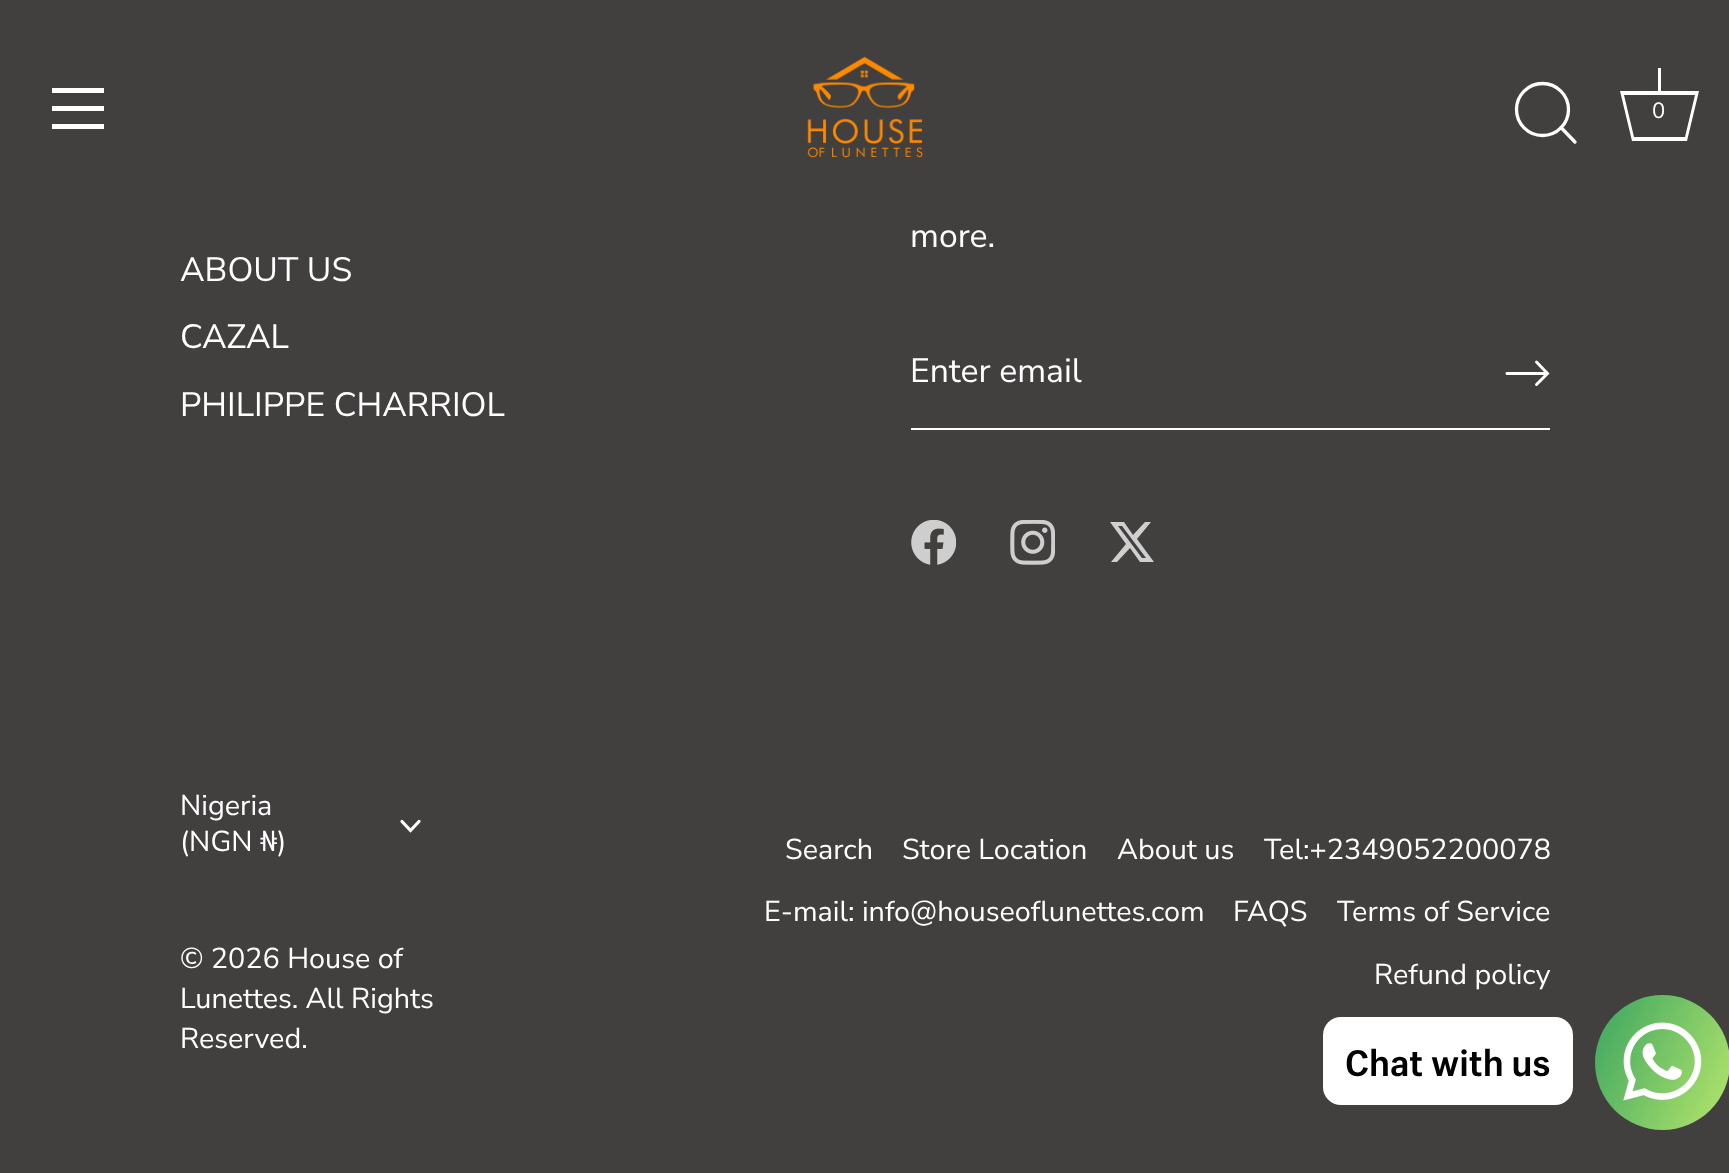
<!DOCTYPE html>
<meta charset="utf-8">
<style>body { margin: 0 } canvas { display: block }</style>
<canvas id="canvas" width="1729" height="1173"></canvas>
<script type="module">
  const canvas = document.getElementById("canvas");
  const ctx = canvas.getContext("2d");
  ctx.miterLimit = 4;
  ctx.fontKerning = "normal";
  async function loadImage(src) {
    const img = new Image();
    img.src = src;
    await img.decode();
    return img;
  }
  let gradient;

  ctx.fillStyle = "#423f3f";
  ctx.fillRect(0, 0, 1729, 1173);
  ctx.fillStyle = "#ffffff";
  ctx.fillRect(52, 88, 52, 5);
  ctx.fillRect(52, 106, 52, 5);
  ctx.fillRect(52, 124, 52, 5);
  ctx.drawImage(await loadImage("img1.png"), 807, 56, 116, 102);
  ctx.beginPath();
  ctx.arc(1542.5, 109.5, 26, 0, Math.PI * 2);
  ctx.strokeStyle = "#ffffff";
  ctx.lineWidth = 3.3;
  ctx.stroke();
  ctx.beginPath();
  ctx.moveTo(1575, 142);
  ctx.lineTo(1561, 127.5);
  ctx.lineCap = "round";
  ctx.lineJoin = "round";
  ctx.stroke();
  ctx.fillRect(1658, 68, 3, 23);
  ctx.beginPath();
  ctx.moveTo(1695, 95);
  ctx.lineTo(1685, 137);
  ctx.lineTo(1634, 137);
  ctx.lineTo(1624, 95);
  ctx.lineTo(1695, 95);
  ctx.moveTo(1699, 91);
  ctx.lineTo(1620, 91);
  ctx.lineTo(1632, 141);
  ctx.lineTo(1687, 141);
  ctx.closePath();
  ctx.fill();
  ctx.font = "22px Nunito Sans";
  ctx.fillText("0", 1652, 118);
  ctx.font = "33.75px Nunito Sans";
  ctx.fillText("ABOUT US", 180, 281);
  ctx.fillText("CAZAL", 180, 348);
  ctx.fillText("PHILIPPE CHARRIOL", 180, 416);
  ctx.fillText("more.", 910, 247);
  ctx.fillRect(911, 428, 639, 2);
  ctx.fillText("Enter email", 910, 382);
  ctx.beginPath();
  ctx.moveTo(1536.5, 384.5);
  ctx.lineTo(1547.5, 373.5);
  ctx.lineTo(1536.5, 362);
  ctx.lineWidth = 2.9;
  ctx.lineJoin = "miter";
  ctx.stroke();
  ctx.beginPath();
  ctx.moveTo(1546.5, 373.5);
  ctx.lineTo(1507, 373.5);
  ctx.lineJoin = "round";
  ctx.stroke();
  ctx.drawImage(await loadImage("img2.png"), 911, 520, 45, 45);
  ctx.drawImage(await loadImage("img3.png"), 1010, 520, 45, 45);
  ctx.fillStyle = "#d0cfcf";
  ctx.beginPath();
  ctx.moveTo(1145, 522);
  ctx.lineTo(1151, 522);
  ctx.lineTo(1137, 539);
  ctx.lineTo(1154, 562);
  ctx.lineTo(1140, 562);
  ctx.lineTo(1130, 548);
  ctx.lineTo(1117, 562);
  ctx.lineTo(1111, 562);
  ctx.lineTo(1126, 544);
  ctx.lineTo(1110, 522);
  ctx.lineTo(1124, 522);
  ctx.lineTo(1133, 535);
  ctx.closePath();
  ctx.moveTo(1142, 558);
  ctx.lineTo(1146, 558);
  ctx.lineTo(1122, 526);
  ctx.lineTo(1118, 526);
  ctx.closePath();
  ctx.fill();
  ctx.font = "28.75px Nunito Sans";
  ctx.fillStyle = "#ffffff";
  ctx.fillText("Nigeria", 180, 815);
  ctx.beginPath();
  ctx.moveTo(402, 821.5);
  ctx.lineTo(410.5, 830.5);
  ctx.lineTo(419, 821.5);
  ctx.lineWidth = 3.2;
  ctx.lineJoin = "miter";
  ctx.stroke();
  ctx.fillText("(NGN ₦)", 180, 851);
  ctx.fillText("© 2026 House of", 180, 968);
  ctx.fillText("Lunettes. All Rights", 180, 1008);
  ctx.fillText("Reserved.", 180, 1048);
  ctx.fillText("Search", 785, 859);
  ctx.fillText("Store Location", 902, 859);
  ctx.fillText("About us", 1117, 859);
  ctx.fillText("Tel:+2349052200078", 1264, 859);
  ctx.fillText("E-mail: info@houseoflunettes.com", 764, 921);
  ctx.fillText("FAQS", 1233, 921);
  ctx.fillText("Terms of Service", 1337, 921);
  ctx.fillText("Refund policy", 1374, 984);
  gradient = ctx.createLinearGradient(1581, 1024, 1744, 1100);
  gradient.addColorStop(0, "#3aa560");
  gradient.addColorStop(1, "#b7e66c");
  ctx.fillStyle = gradient;
  ctx.beginPath();
  ctx.arc(1662.5, 1062.5, 67.5, 0, Math.PI * 2);
  ctx.fill();
  ctx.fillStyle = "#ffffff";
  ctx.beginPath();
  ctx.roundRect(1323, 1017, 250, 88, 18);
  ctx.fill();
  ctx.font = "bold 36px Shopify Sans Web";
  ctx.fillStyle = "#000000";
  ctx.fillText("Chat with us", 1345, 1076);
  ctx.drawImage(await loadImage("img4.png"), 1623, 1022, 79, 79);
</script>
